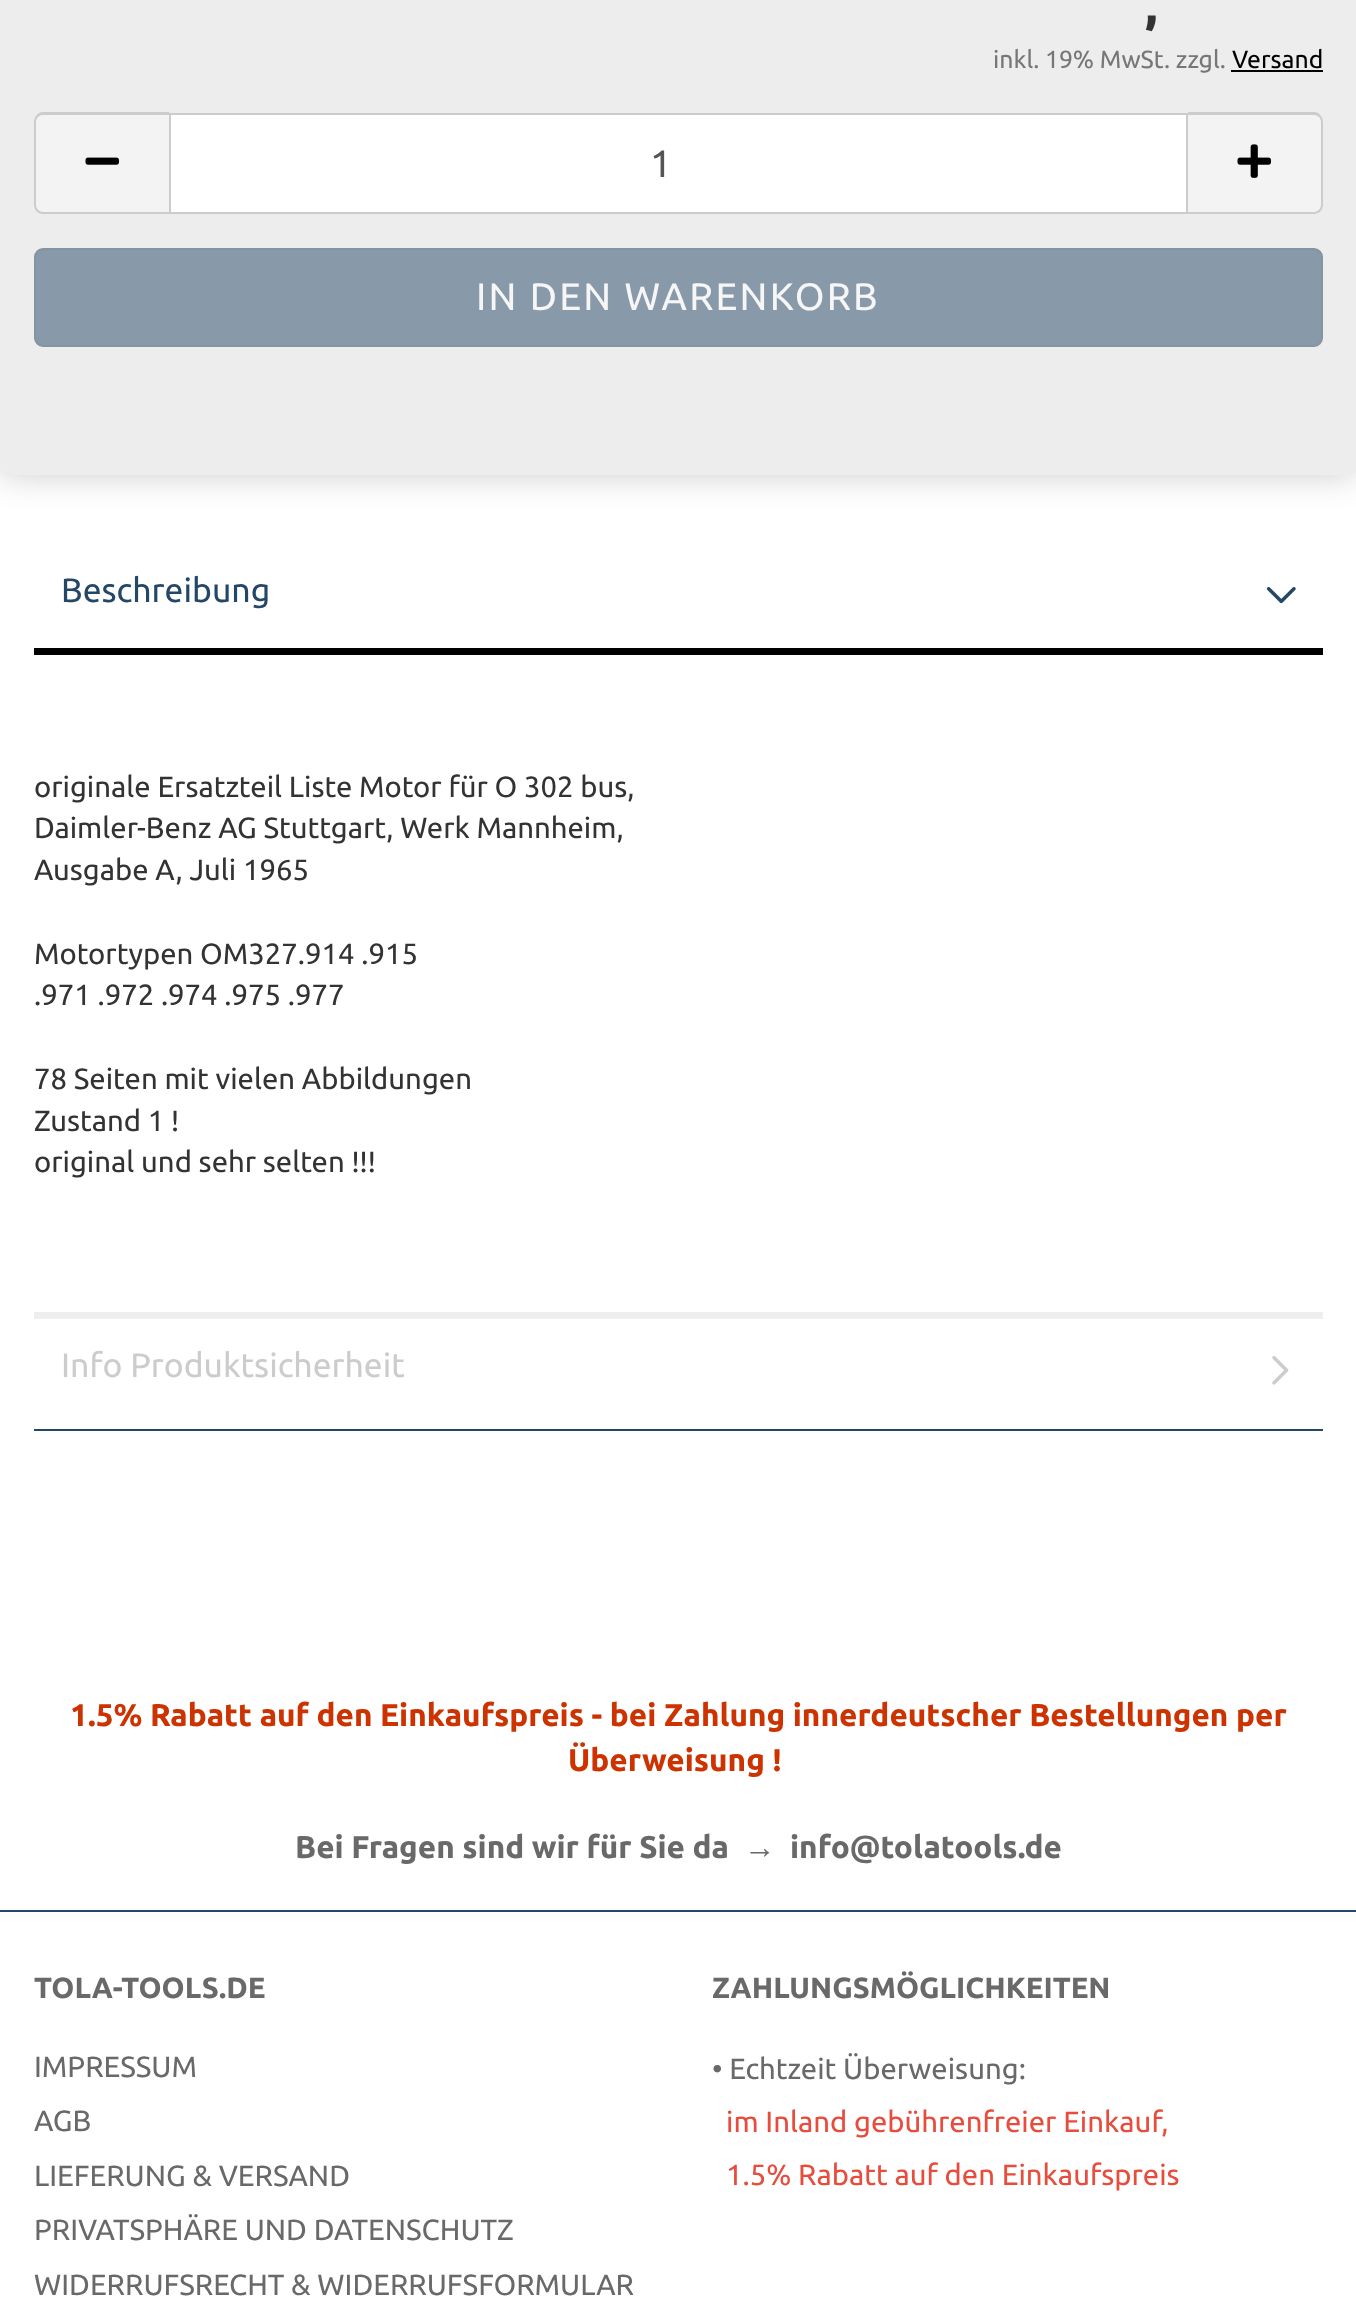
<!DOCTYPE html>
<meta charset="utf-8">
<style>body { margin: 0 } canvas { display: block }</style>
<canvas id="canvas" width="1356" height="2314"></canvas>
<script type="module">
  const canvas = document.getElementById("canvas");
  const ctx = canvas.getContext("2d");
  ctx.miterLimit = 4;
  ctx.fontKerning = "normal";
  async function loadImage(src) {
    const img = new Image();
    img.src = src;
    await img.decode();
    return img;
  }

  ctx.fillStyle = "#ffffff";
  ctx.fillRect(0, 0, 1356, 2314);
  ctx.fillStyle = "rgba(0, 0, 0, 0.2)";
  ctx.filter = "blur(17px)";
  ctx.beginPath();
  ctx.roundRect(0, -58, 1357, 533, 7);
  ctx.fill();
  ctx.filter = "none";
  ctx.fillStyle = "#ededed";
  ctx.beginPath();
  ctx.roundRect(0, -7, 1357, 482, 7);
  ctx.fill();
  ctx.font = "bold 50px Ubuntu";
  ctx.fillStyle = "#333333";
  ctx.fillText(",", 1145, 23);
  ctx.font = "24.75px Ubuntu";
  ctx.fillStyle = "#777777";
  ctx.fillText("inkl. 19% MwSt. zzgl.", 993, 68);
  ctx.fillStyle = "#000000";
  ctx.fillText("Versand", 1232, 68);
  ctx.fillRect(1231, 70, 92, 2);
  ctx.fillStyle = "#f3f3f3";
  ctx.beginPath();
  ctx.roundRect(34, 113, 135, 101, [9, 0, 0, 9]);
  ctx.fill();
  ctx.fillStyle = "#cccccc";
  ctx.beginPath();
  ctx.moveTo(43, 112);
  ctx.lineTo(169, 112);
  ctx.lineTo(169, 214);
  ctx.lineTo(43, 214);
  ctx.bezierCurveTo(38, 214, 34, 210, 34, 205);
  ctx.lineTo(34, 122);
  ctx.bezierCurveTo(34, 117, 38, 112, 43, 112);
  ctx.closePath();
  ctx.moveTo(43, 115);
  ctx.lineTo(169, 115);
  ctx.lineTo(169, 212);
  ctx.lineTo(43, 212);
  ctx.bezierCurveTo(39, 212, 36, 208, 36, 205);
  ctx.lineTo(36, 122);
  ctx.bezierCurveTo(36, 118, 39, 115, 43, 115);
  ctx.closePath();
  ctx.fill("evenodd");
  ctx.drawImage(await loadImage("img1.png"), 85, 157, 34, 8);
  ctx.fillStyle = "#ffffff";
  ctx.beginPath();
  ctx.rect(170, 114, 1017, 99);
  ctx.fill();
  ctx.strokeStyle = "#cccccc";
  ctx.lineWidth = 2;
  ctx.stroke();
  ctx.font = "38.25px Ubuntu";
  ctx.fillStyle = "#555555";
  ctx.fillText("1", 650, 177);
  ctx.fillStyle = "#f3f3f3";
  ctx.beginPath();
  ctx.roundRect(1188, 113, 135, 101, [0, 9, 9, 0]);
  ctx.fill();
  ctx.fillStyle = "#cccccc";
  ctx.beginPath();
  ctx.moveTo(1188, 112);
  ctx.lineTo(1314, 112);
  ctx.bezierCurveTo(1319, 112, 1323, 117, 1323, 122);
  ctx.lineTo(1323, 205);
  ctx.bezierCurveTo(1323, 210, 1319, 214, 1314, 214);
  ctx.lineTo(1188, 214);
  ctx.closePath();
  ctx.moveTo(1188, 115);
  ctx.lineTo(1314, 115);
  ctx.bezierCurveTo(1318, 115, 1321, 118, 1321, 122);
  ctx.lineTo(1321, 205);
  ctx.bezierCurveTo(1321, 208, 1318, 212, 1314, 212);
  ctx.lineTo(1188, 212);
  ctx.closePath();
  ctx.fill("evenodd");
  ctx.drawImage(await loadImage("img2.png"), 1237, 144, 34, 34);
  ctx.fillStyle = "#889aaa";
  ctx.beginPath();
  ctx.roundRect(35, 249, 1287, 97, 8);
  ctx.fill();
  ctx.strokeStyle = "#8594a1";
  ctx.stroke();
  ctx.letterSpacing = "2.25px";
  ctx.fillStyle = "#f6f6f6";
  ctx.fillText("IN DEN WARENKORB", 476, 310);
  ctx.fillStyle = "#000000";
  ctx.fillRect(34, 648, 1289, 7);
  ctx.letterSpacing = "0px";
  ctx.font = "33.75px Ubuntu";
  ctx.fillStyle = "#244768";
  ctx.fillText("Beschreibung", 61, 602);
  ctx.drawImage(await loadImage("img3.png"), 1266, 587, 30, 17);
  ctx.fillStyle = "#eeeeee";
  ctx.fillRect(34, 1312, 1289, 7);
  ctx.font = "29.25px Ubuntu";
  ctx.fillStyle = "#333333";
  ctx.fillText("originale Ersatzteil Liste Motor für O 302 bus,", 34, 797);
  ctx.fillText("Daimler-Benz AG Stuttgart, Werk Mannheim,", 34, 838);
  ctx.fillText("Ausgabe A, Juli 1965", 34, 880);
  ctx.fillText("Motortypen OM327.914 .915", 34, 964);
  ctx.fillText(".971 .972 .974 .975 .977", 34, 1005);
  ctx.fillText("78 Seiten mit vielen Abbildungen", 34, 1089);
  ctx.fillText("Zustand 1 !", 34, 1131);
  ctx.fillText("original und sehr selten !!!", 34, 1172);
  ctx.fillStyle = "#244768";
  ctx.fillRect(34, 1429, 1289, 2);
  ctx.font = "33.75px Ubuntu";
  ctx.fillStyle = "#cccccc";
  ctx.fillText("Info Produktsicherheit", 61, 1377);
  ctx.drawImage(await loadImage("img4.png"), 1272, 1356, 17, 29);
  ctx.font = "bold 31.5px Ubuntu";
  ctx.fillStyle = "#cc3300";
  ctx.fillText("1.5% Rabatt auf den Einkaufspreis - bei Zahlung innerdeutscher Bestellungen per", 70, 1726);
  ctx.fillText("Überweisung !", 568, 1771);
  ctx.fillStyle = "#696969";
  ctx.fillText("Bei Fragen sind wir für Sie da", 295, 1858);
  ctx.font = "bold 31.5px Liberation Sans";
  ctx.fillText("→", 744, 1858);
  ctx.font = "bold 31.5px Ubuntu";
  ctx.fillText("info@tolatools.de", 790, 1858);
  ctx.fillStyle = "#244768";
  ctx.fillRect(0, 1910, 1356, 2);
  ctx.font = "bold 29.25px Ubuntu";
  ctx.fillStyle = "#696969";
  ctx.fillText("TOLA-TOOLS.DE", 34, 1998);
  ctx.font = "29.25px Ubuntu";
  ctx.fillText("IMPRESSUM", 34, 2077);
  ctx.fillText("AGB", 34, 2131);
  ctx.fillText("LIEFERUNG & VERSAND", 34, 2186);
  ctx.fillText("PRIVATSPHÄRE UND DATENSCHUTZ", 34, 2240);
  ctx.fillText("WIDERRUFSRECHT & WIDERRUFSFORMULAR", 34, 2295);
  ctx.font = "bold 29.25px Ubuntu";
  ctx.fillText("ZAHLUNGSMÖGLICHKEITEN", 712, 1998);
  ctx.font = "29.25px Ubuntu";
  ctx.fillText("• Echtzeit Überweisung:", 712, 2079);
  ctx.fillStyle = "#e74c3c";
  ctx.fillText("im Inland gebührenfreier Einkauf,", 726, 2132);
  ctx.fillText("1.5% Rabatt auf den Einkaufspreis", 726, 2185);
</script>
